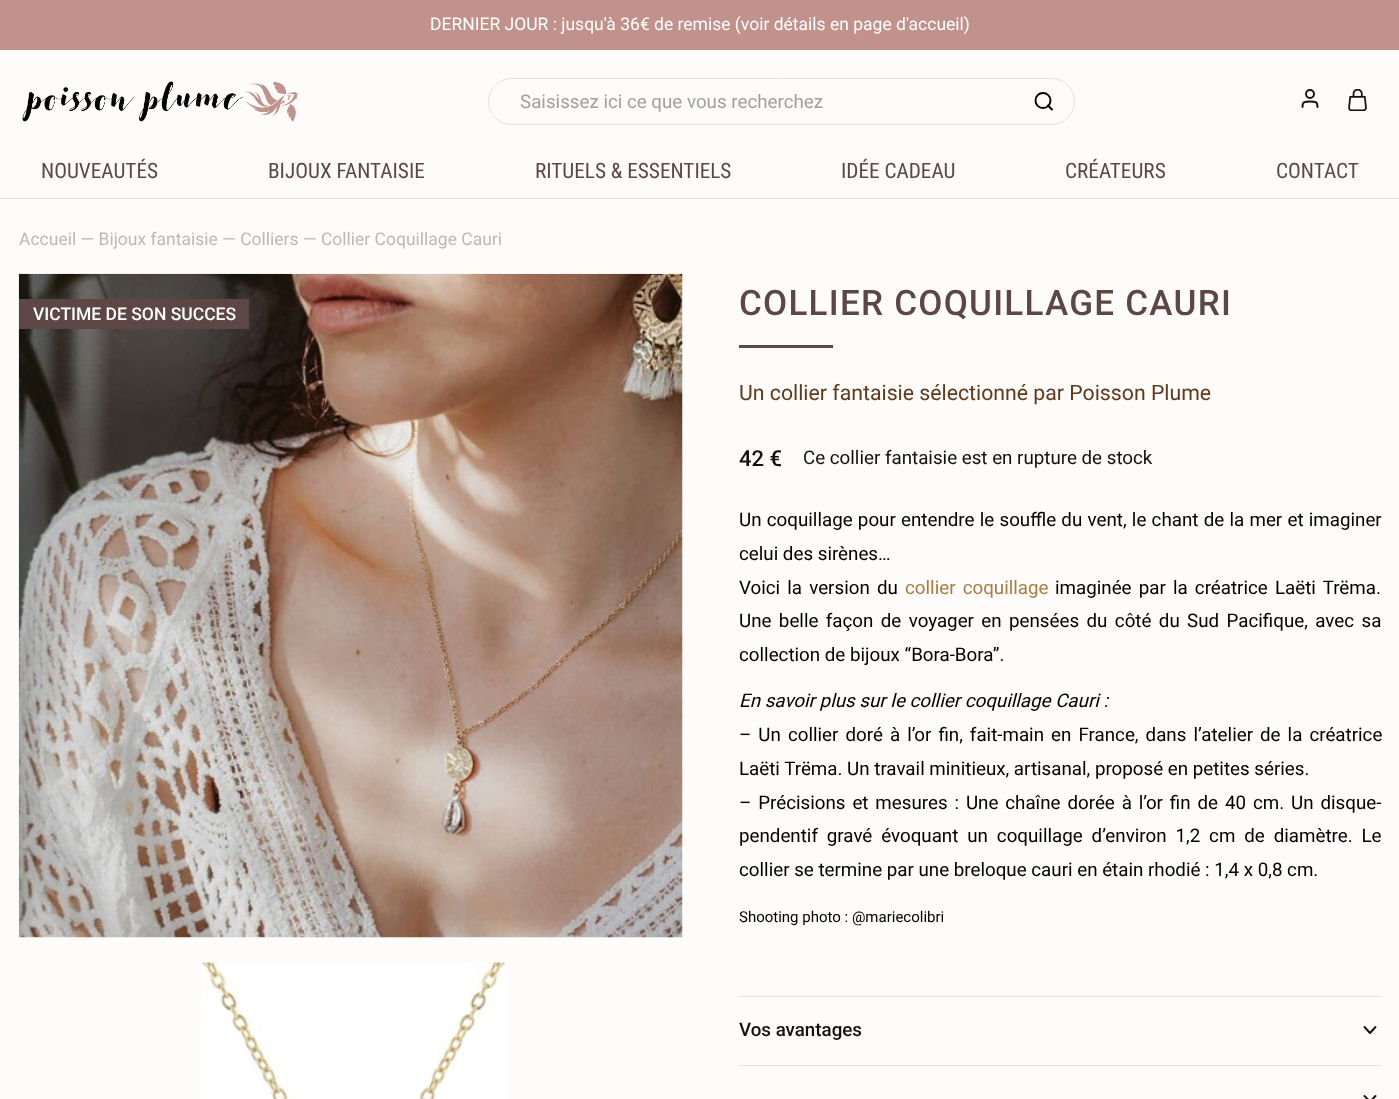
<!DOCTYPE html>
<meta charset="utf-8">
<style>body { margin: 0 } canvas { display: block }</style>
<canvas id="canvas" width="1399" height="1099"></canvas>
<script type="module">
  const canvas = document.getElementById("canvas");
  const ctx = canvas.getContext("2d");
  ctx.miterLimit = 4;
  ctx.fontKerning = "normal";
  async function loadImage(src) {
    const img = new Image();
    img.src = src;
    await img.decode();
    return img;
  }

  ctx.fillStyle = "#fefcfb";
  ctx.fillRect(0, 0, 1399, 1099);
  ctx.fillStyle = "#c1928c";
  ctx.fillRect(0, 0, 1399, 50);
  ctx.font = "17.5px Roboto";
  ctx.fillStyle = "#ffffff";
  ctx.fillText("DERNIER JOUR : jusqu'à 36€ de remise (voir détails en page d'accueil)", 430, 30);
  ctx.fillStyle = "#e2e2e2";
  ctx.fillRect(0, 198, 1399, 1);
  ctx.drawImage(await loadImage("img1.png"), 22, 81, 276, 41);
  ctx.beginPath();
  ctx.roundRect(488.5, 78.5, 586, 46, 23);
  ctx.strokeStyle = "#e2e2e2";
  ctx.stroke();
  ctx.font = "18.75px Roboto";
  ctx.fillStyle = "#a0a0a0";
  ctx.fillText("Saisissez ici ce que vous recherchez", 520, 108);
  ctx.beginPath();
  ctx.arc(1043, 100.5, 7.5, 0, Math.PI * 2);
  ctx.strokeStyle = "#000000";
  ctx.lineWidth = 1.9;
  ctx.stroke();
  ctx.beginPath();
  ctx.moveTo(1052, 109.5);
  ctx.lineTo(1048, 105.5);
  ctx.lineCap = "round";
  ctx.lineJoin = "round";
  ctx.stroke();
  ctx.beginPath();
  ctx.moveTo(1317.5, 107);
  ctx.bezierCurveTo(1317.5, 101.5, 1315, 101.5, 1310, 101.5);
  ctx.bezierCurveTo(1305, 101.5, 1302.5, 101.5, 1302.5, 107);
  ctx.strokeStyle = "#111111";
  ctx.stroke();
  ctx.beginPath();
  ctx.arc(1310, 94, 4, 0, Math.PI * 2);
  ctx.stroke();
  ctx.drawImage(await loadImage("img2.png"), 1348, 89, 19, 22);
  ctx.font = "21.25px Roboto Condensed";
  ctx.fillStyle = "#5c4745";
  ctx.fillText("NOUVEAUTÉS", 41, 178);
  ctx.fillText("BIJOUX FANTAISIE", 268, 178);
  ctx.fillText("RITUELS & ESSENTIELS", 535, 178);
  ctx.fillText("IDÉE CADEAU", 841, 178);
  ctx.fillText("CRÉATEURS", 1065, 178);
  ctx.fillText("CONTACT", 1276, 178);
  ctx.font = "17.5px Roboto";
  ctx.fillStyle = "#b9b9b9";
  ctx.fillText("Accueil — Bijoux fantaisie — Colliers — Collier Coquillage Cauri", 19, 245);
  ctx.drawImage(await loadImage("img3.png"), 18, 273, 665, 665);
  ctx.drawImage(await loadImage("img4.png"), 201, 962, 307, 137);
  ctx.fillStyle = "#5c4745";
  ctx.fillRect(19, 299, 230, 30);
  ctx.font = "500 17.5px Roboto";
  ctx.fillStyle = "#ffffff";
  ctx.fillText("VICTIME DE SON SUCCES", 33, 320);
  ctx.letterSpacing = "1.25px";
  ctx.font = "500 35px Roboto";
  ctx.fillStyle = "#5c4745";
  ctx.fillText("COLLIER COQUILLAGE CAURI", 739, 315);
  ctx.fillRect(739, 345, 94, 3);
  ctx.letterSpacing = "0px";
  ctx.font = "21.25px Roboto";
  ctx.fillStyle = "#61391b";
  ctx.fillText("Un collier fantaisie sélectionné par Poisson Plume", 739, 400);
  ctx.font = "500 22px Roboto";
  ctx.fillStyle = "#111111";
  ctx.fillText("42 €", 739, 466);
  ctx.font = "18.75px Roboto";
  ctx.fillText("Ce collier fantaisie est en rupture de stock", 803, 464);
  ctx.wordSpacing = "0.6px";
  ctx.fillStyle = "#000000";
  ctx.fillText("Un coquillage pour entendre le souffle du vent, le chant de la mer et imaginer", 739, 526);
  ctx.wordSpacing = "0px";
  ctx.fillText("celui des sirènes…", 739, 560);
  ctx.wordSpacing = "2.5px";
  ctx.fillText("Voici la version du", 739, 594);
  ctx.fillStyle = "#ab7b41";
  ctx.fillText("collier coquillage", 905, 594);
  ctx.fillStyle = "#000000";
  ctx.fillText("imaginée par la créatrice Laëti Trëma.", 1055, 594);
  ctx.wordSpacing = "2.75px";
  ctx.fillText("Une belle façon de voyager en pensées du côté du Sud Pacifique, avec sa", 739, 627);
  ctx.wordSpacing = "0px";
  ctx.fillText("collection de bijoux “Bora-Bora”.", 739, 661);
  ctx.font = "italic 18.75px Roboto";
  ctx.fillText("En savoir plus sur le collier coquillage Cauri :", 739, 707);
  ctx.wordSpacing = "2.4px";
  ctx.font = "18.75px Roboto";
  ctx.fillText("– Un collier doré à l’or fin, fait-main en France, dans l’atelier de la créatrice", 739, 741);
  ctx.wordSpacing = "0px";
  ctx.fillText("Laëti Trëma. Un travail minitieux, artisanal, proposé en petites séries.", 739, 775);
  ctx.wordSpacing = "2.25px";
  ctx.fillText("– Précisions et mesures : Une chaîne dorée à l’or fin de 40 cm. Un disque-", 739, 809);
  ctx.wordSpacing = "4.25px";
  ctx.fillText("pendentif gravé évoquant un coquillage d’environ 1,2 cm de diamètre. Le", 739, 842);
  ctx.wordSpacing = "0px";
  ctx.fillText("collier se termine par une breloque cauri en étain rhodié : 1,4 x 0,8 cm.", 739, 876);
  ctx.font = "15px Roboto";
  ctx.fillText("Shooting photo : @mariecolibri", 739, 922);
  ctx.fillStyle = "#e2e2e2";
  ctx.fillRect(739, 996, 642, 1);
  ctx.font = "500 18.75px Roboto";
  ctx.fillStyle = "#111111";
  ctx.fillText("Vos avantages", 739, 1036);
  ctx.beginPath();
  ctx.moveTo(1364.5, 1027);
  ctx.lineTo(1370, 1033);
  ctx.lineTo(1375.5, 1027);
  ctx.stroke();
  ctx.fillStyle = "#e2e2e2";
  ctx.fillRect(739, 1065, 642, 1);
  ctx.beginPath();
  ctx.moveTo(1364.5, 1096);
  ctx.lineTo(1370, 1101.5);
  ctx.lineTo(1375.5, 1096);
  ctx.stroke();
</script>
